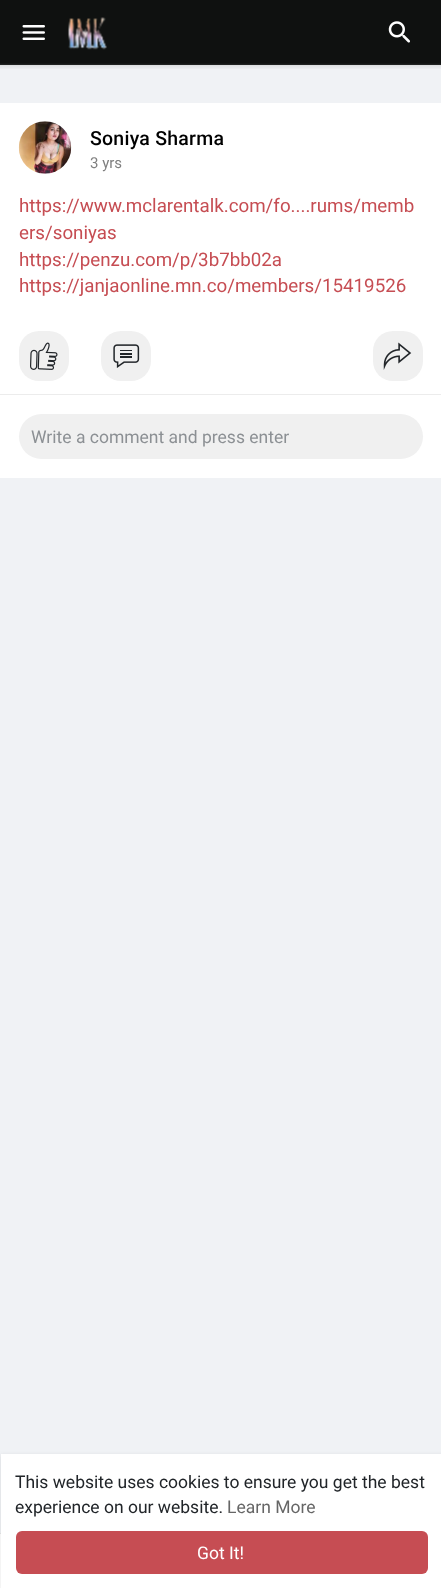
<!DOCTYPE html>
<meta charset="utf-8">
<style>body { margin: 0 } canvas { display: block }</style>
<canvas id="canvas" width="441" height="1588"></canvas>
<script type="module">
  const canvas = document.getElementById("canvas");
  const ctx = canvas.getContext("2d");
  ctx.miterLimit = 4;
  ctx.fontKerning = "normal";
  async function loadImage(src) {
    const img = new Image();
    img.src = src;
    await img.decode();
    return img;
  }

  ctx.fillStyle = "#f0f2f5";
  ctx.fillRect(0, 0, 441, 1588);
  ctx.fillStyle = "#0f1110";
  ctx.fillRect(0, 0, 441, 65);
  ctx.drawImage(await loadImage("img1.png"), 22, 25, 23, 15);
  ctx.drawImage(await loadImage("img2.png"), 68, 17, 39, 33);
  ctx.drawImage(await loadImage("img3.png"), 388, 21, 22, 22);
  ctx.drawImage(await loadImage("img4.png"), 0, 63, 441, 6);
  ctx.fillStyle = "#ffffff";
  ctx.fillRect(0, 103, 441, 375);
  ctx.drawImage(await loadImage("img5.png"), 18, 121, 54, 53);
  ctx.letterSpacing = "0.25px";
  ctx.font = "500 19.5px Roboto";
  ctx.fillStyle = "#000000";
  ctx.fillText("Soniya Sharma", 90, 145);
  ctx.letterSpacing = "0px";
  ctx.font = "15px Roboto";
  ctx.fillStyle = "#7f7f7f";
  ctx.fillText("3 yrs", 90, 168);
  ctx.font = "18.75px Roboto";
  ctx.fillStyle = "#c64d53";
  ctx.fillText("https://www.mclarentalk.com/fo....rums/memb", 19, 212);
  ctx.fillText("ers/soniyas", 19, 239);
  ctx.fillText("https://penzu.com/p/3b7bb02a", 19, 266);
  ctx.fillText("https://janjaonline.mn.co/members/15419526", 19, 292);
  ctx.fillStyle = "#f0f0f0";
  ctx.beginPath();
  ctx.roundRect(19, 331, 50, 50, 20);
  ctx.fill();
  ctx.drawImage(await loadImage("img6.png"), 30, 342, 28, 28);
  ctx.beginPath();
  ctx.roundRect(101, 331, 50, 50, 20);
  ctx.fill();
  ctx.drawImage(await loadImage("img7.png"), 113, 344, 27, 24);
  ctx.beginPath();
  ctx.roundRect(373, 331, 50, 50, 20);
  ctx.fill();
  ctx.drawImage(await loadImage("img8.png"), 383, 342, 29, 28);
  ctx.fillStyle = "#ececec";
  ctx.fillRect(0, 394, 441, 1);
  ctx.fillStyle = "#f0f0f0";
  ctx.beginPath();
  ctx.roundRect(19, 414, 404, 45, 22.5);
  ctx.fill();
  ctx.font = "17.5px Roboto";
  ctx.fillStyle = "#8c9094";
  ctx.fillText("Write a comment and press enter", 31, 443);
  ctx.fillStyle = "#ffffff";
  ctx.fillRect(0, 1534, 1, 54);
  ctx.fillStyle = "#e6e6e6";
  ctx.fillRect(0, 1533, 1, 1);
  ctx.fillStyle = "rgba(0, 0, 0, 0.1)";
  ctx.filter = "blur(2px)";
  ctx.beginPath();
  ctx.rect(1, 1455, 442, 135);
  ctx.fill();
  ctx.filter = "none";
  ctx.fillStyle = "#ffffff";
  ctx.fillRect(1, 1454, 440, 134);
  ctx.fillStyle = "#212529";
  ctx.fillText("This website uses cookies to ensure you get the best", 15, 1488);
  ctx.fillText("experience on our website.", 15, 1513);
  ctx.fillStyle = "#666666";
  ctx.fillText("Learn More", 227, 1513);
  ctx.fillStyle = "#c64d53";
  ctx.beginPath();
  ctx.roundRect(16, 1531, 412, 43, 6);
  ctx.fill();
  ctx.fillStyle = "#ffffff";
  ctx.fillText("Got It!", 197, 1559);
</script>
